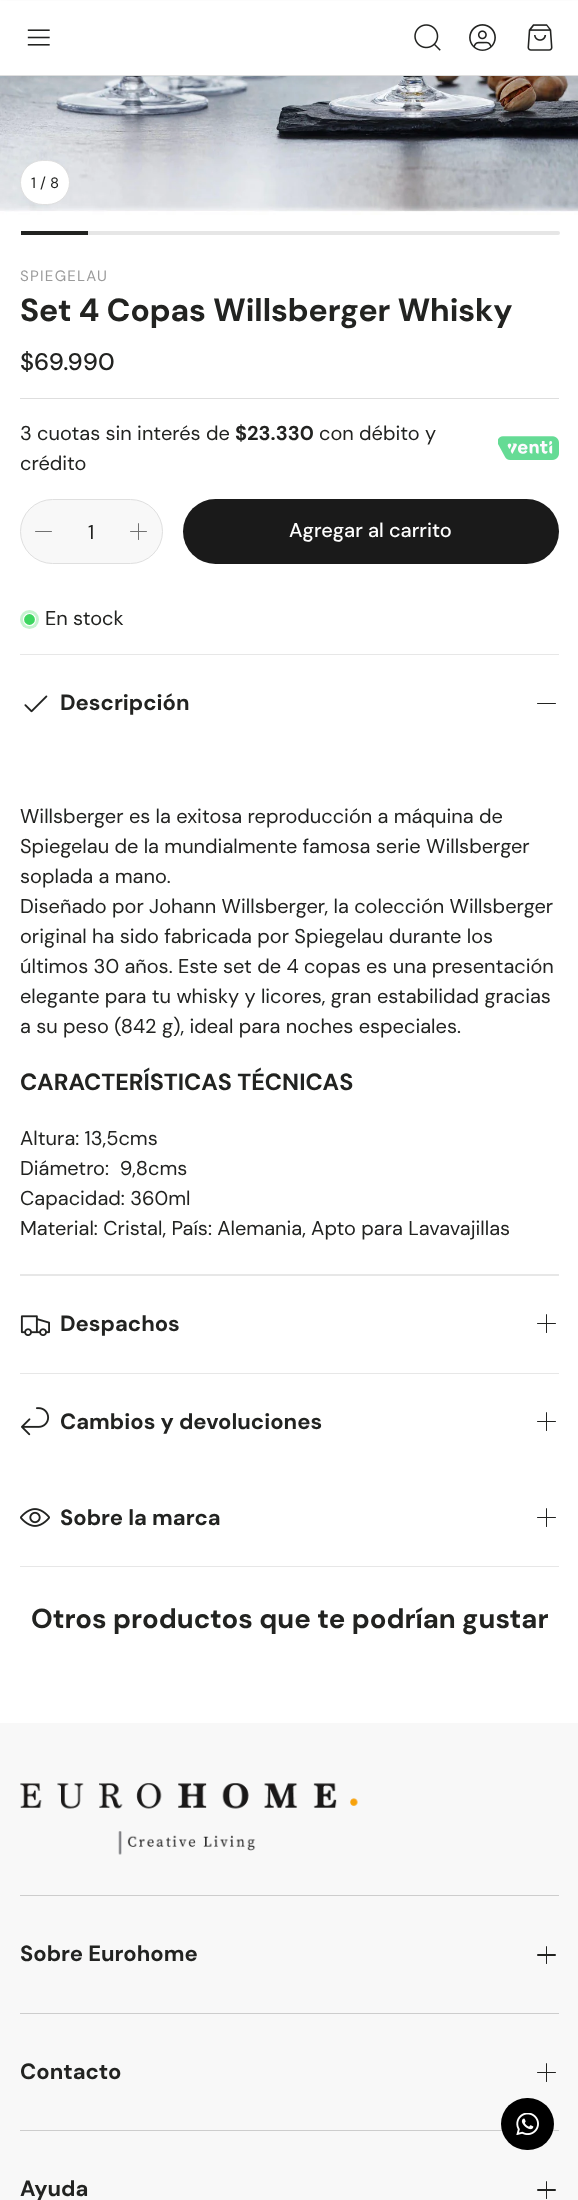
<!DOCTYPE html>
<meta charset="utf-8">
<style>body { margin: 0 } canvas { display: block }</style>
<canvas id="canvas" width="578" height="2200"></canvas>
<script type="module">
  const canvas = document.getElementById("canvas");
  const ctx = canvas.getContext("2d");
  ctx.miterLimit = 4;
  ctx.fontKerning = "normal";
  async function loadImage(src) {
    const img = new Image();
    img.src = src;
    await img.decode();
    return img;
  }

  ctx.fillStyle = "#ffffff";
  ctx.fillRect(0, 0, 578, 2200);
  ctx.drawImage(await loadImage("img5.png"), 0, 76, 578, 139);
  ctx.fillStyle = "rgba(0, 0, 0, 0.05)";
  ctx.filter = "blur(4px)";
  ctx.beginPath();
  ctx.rect(0, 4, 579, 76);
  ctx.fill();
  ctx.filter = "none";
  ctx.fillStyle = "#ffffff";
  ctx.fillRect(0, 1, 578, 74);
  ctx.fillStyle = "#dfdfdf";
  ctx.fillRect(0, 75, 578, 1);
  ctx.drawImage(await loadImage("img1.png"), 27, 29, 23, 17);
  ctx.drawImage(await loadImage("img2.png"), 414, 24, 27, 27);
  ctx.drawImage(await loadImage("img3.png"), 469, 24, 27, 27);
  ctx.drawImage(await loadImage("img4.png"), 527, 24, 26, 27);
  ctx.fillStyle = "#ffffff";
  ctx.beginPath();
  ctx.roundRect(20.5, 160.5, 49, 44, 22);
  ctx.fill();
  ctx.strokeStyle = "#dfdfdf";
  ctx.stroke();
  ctx.font = "15px DM Sans";
  ctx.fillStyle = "#222321";
  ctx.fillText("1", 31, 188);
  ctx.font = "15px 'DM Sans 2'";
  ctx.fillText("/ 8", 40, 188);
  ctx.fillStyle = "#e6e6e6";
  ctx.beginPath();
  ctx.roundRect(21, 231, 539, 4, 2);
  ctx.fill();
  ctx.fillStyle = "#222321";
  ctx.fillRect(21, 231, 67, 4);
  ctx.letterSpacing = "1.25px";
  ctx.fillStyle = "#9b9b9b";
  ctx.fillText("SPIEGELAU", 20, 281);
  ctx.letterSpacing = "0px";
  ctx.font = "bold 32px 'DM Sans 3'";
  ctx.fillStyle = "#222321";
  ctx.fillText("Set 4 Copas Willsberger Whisky", 20, 321);
  ctx.font = "500 24px DM Sans";
  ctx.fillText("$69.990", 20, 370);
  ctx.fillStyle = "#dedede";
  ctx.fillRect(20, 398, 539, 1);
  ctx.font = "20px 'DM Sans 3'";
  ctx.fillStyle = "#222321";
  ctx.fillText("3 cuotas sin interés de", 20, 440);
  ctx.font = "bold 20px 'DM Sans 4'";
  ctx.fillText("$23.330", 235, 440);
  ctx.font = "20px 'DM Sans 3'";
  ctx.fillText("con débito y", 319, 440);
  ctx.fillText("crédito", 20, 470);
  ctx.drawImage(await loadImage("img6.png"), 498, 436, 61, 24);
  ctx.fillStyle = "#f8f8f8";
  ctx.beginPath();
  ctx.roundRect(20.5, 499.5, 142, 64, 32);
  ctx.fill();
  ctx.stroke();
  ctx.fillStyle = "#717171";
  ctx.beginPath();
  ctx.roundRect(35, 531, 17, 1, 0.5);
  ctx.fill();
  ctx.fillStyle = "#222321";
  ctx.fillText("1", 88, 539);
  ctx.fillStyle = "#717171";
  ctx.beginPath();
  ctx.roundRect(130, 531, 17, 1, 0.5);
  ctx.fill();
  ctx.beginPath();
  ctx.roundRect(138, 523, 1, 17, 0.5);
  ctx.fill();
  ctx.fillStyle = "#1a1a1a";
  ctx.beginPath();
  ctx.roundRect(183, 499, 376, 65, 32.5);
  ctx.fill();
  ctx.font = "500 20px 'DM Sans 2'";
  ctx.fillStyle = "#ffffff";
  ctx.fillText("Agregar al carrito", 289, 537);
  ctx.fillStyle = "#c5f3cf";
  ctx.beginPath();
  ctx.arc(29.5, 619.5, 9.5, 0, Math.PI * 2);
  ctx.fill();
  ctx.fillStyle = "#3ed660";
  ctx.beginPath();
  ctx.arc(29.5, 619.5, 6, 0, Math.PI * 2);
  ctx.fill();
  ctx.strokeStyle = "#ffffff";
  ctx.lineWidth = 1.2;
  ctx.stroke();
  ctx.font = "20px 'DM Sans 3'";
  ctx.fillStyle = "#222321";
  ctx.fillText("En stock", 45, 625);
  ctx.fillStyle = "#e7e7e7";
  ctx.fillRect(20, 654, 539, 1);
  ctx.drawImage(await loadImage("img7.png"), 24, 695, 24, 18);
  ctx.font = "bold 22px DM Sans";
  ctx.fillStyle = "#222321";
  ctx.fillText("Descripción", 60, 710);
  ctx.beginPath();
  ctx.roundRect(537, 703, 19, 1, 0.5);
  ctx.fill();
  ctx.font = "20px 'DM Sans 3'";
  ctx.fillText("Willsberger es la exitosa reproducción a máquina de", 20, 823);
  ctx.fillText("Spiegelau de la mundialmente famosa serie Willsberger", 20, 853);
  ctx.fillText("soplada a mano.", 20, 883);
  ctx.fillText("Diseñado por Johann Willsberger, la colección Willsberger", 20, 913);
  ctx.fillText("original ha sido fabricada por Spiegelau durante los", 20, 943);
  ctx.fillText("últimos 30 años. Este set de 4 copas es una presentación", 20, 973);
  ctx.fillText("elegante para tu whisky y licores, gran estabilidad gracias", 20, 1003);
  ctx.fillText("a su peso (842 g), ideal para noches especiales.", 20, 1033);
  ctx.font = "bold 23.4px 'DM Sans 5'";
  ctx.fillText("CARACTERÍSTICAS TÉCNICAS", 20, 1090);
  ctx.font = "20px 'DM Sans 3'";
  ctx.fillText("Altura: 13,5cms", 20, 1145);
  ctx.fillText("Diámetro:  9,8cms", 20, 1175);
  ctx.fillText("Capacidad: 360ml", 20, 1205);
  ctx.fillText("Material: Cristal, País: Alemania, Apto para Lavavajillas", 20, 1235);
  ctx.fillStyle = "#e7e7e7";
  ctx.fillRect(20, 1274, 539, 2);
  ctx.drawImage(await loadImage("img8.png"), 20, 1315, 30, 21);
  ctx.font = "bold 22px DM Sans";
  ctx.fillStyle = "#222321";
  ctx.fillText("Despachos", 60, 1331);
  ctx.beginPath();
  ctx.roundRect(537, 1323, 19, 1, 0.5);
  ctx.fill();
  ctx.beginPath();
  ctx.roundRect(546, 1314, 1, 19, 0.5);
  ctx.fill();
  ctx.fillStyle = "#e7e7e7";
  ctx.fillRect(20, 1373, 539, 1);
  ctx.drawImage(await loadImage("img9.png"), 21, 1407, 29, 29);
  ctx.fillStyle = "#222321";
  ctx.fillText("Cambios y devoluciones", 60, 1429);
  ctx.beginPath();
  ctx.roundRect(537, 1421, 19, 1, 0.5);
  ctx.fill();
  ctx.beginPath();
  ctx.roundRect(546, 1412, 1, 19, 0.5);
  ctx.fill();
  ctx.drawImage(await loadImage("img10.png"), 20, 1508, 30, 19);
  ctx.fillText("Sobre la marca", 60, 1525);
  ctx.beginPath();
  ctx.roundRect(537, 1517, 19, 1, 0.5);
  ctx.fill();
  ctx.beginPath();
  ctx.roundRect(546, 1508, 1, 19, 0.5);
  ctx.fill();
  ctx.fillStyle = "#e7e7e7";
  ctx.fillRect(20, 1566, 539, 1);
  ctx.font = "bold 27.5px 'DM Sans 2'";
  ctx.fillStyle = "#222321";
  ctx.fillText("Otros productos que te podrían gustar", 31, 1628);
  ctx.fillStyle = "#f8f8f8";
  ctx.fillRect(0, 1723, 578, 477);
  ctx.drawImage(await loadImage("img11.png"), 20, 1783, 338, 72);
  ctx.fillStyle = "#cdcdcd";
  ctx.fillRect(20, 1895, 539, 1);
  ctx.font = "bold 22px DM Sans";
  ctx.fillStyle = "#222321";
  ctx.fillText("Sobre Eurohome", 20, 1961);
  ctx.beginPath();
  ctx.roundRect(537, 1954, 19, 2, 1);
  ctx.fill();
  ctx.beginPath();
  ctx.roundRect(546, 1946, 1, 18, 0.5);
  ctx.fill();
  ctx.fillStyle = "#cdcdcd";
  ctx.fillRect(20, 2013, 539, 1);
  ctx.fillStyle = "#222321";
  ctx.fillText("Contacto", 20, 2079);
  ctx.beginPath();
  ctx.roundRect(537, 2072, 19, 1, 0.5);
  ctx.fill();
  ctx.beginPath();
  ctx.roundRect(546, 2063, 1, 19, 0.5);
  ctx.fill();
  ctx.fillStyle = "#cdcdcd";
  ctx.fillRect(20, 2130, 539, 1);
  ctx.fillStyle = "#222321";
  ctx.fillText("Ayuda", 20, 2196);
  ctx.beginPath();
  ctx.roundRect(537, 2189, 19, 2, 1);
  ctx.fill();
  ctx.beginPath();
  ctx.roundRect(546, 2181, 1, 18, 0.5);
  ctx.fill();
  ctx.fillStyle = "#000000";
  ctx.beginPath();
  ctx.roundRect(501, 2098, 53, 52, 26);
  ctx.fill();
  ctx.drawImage(await loadImage("img12.png"), 516, 2113, 23, 22);
</script>
